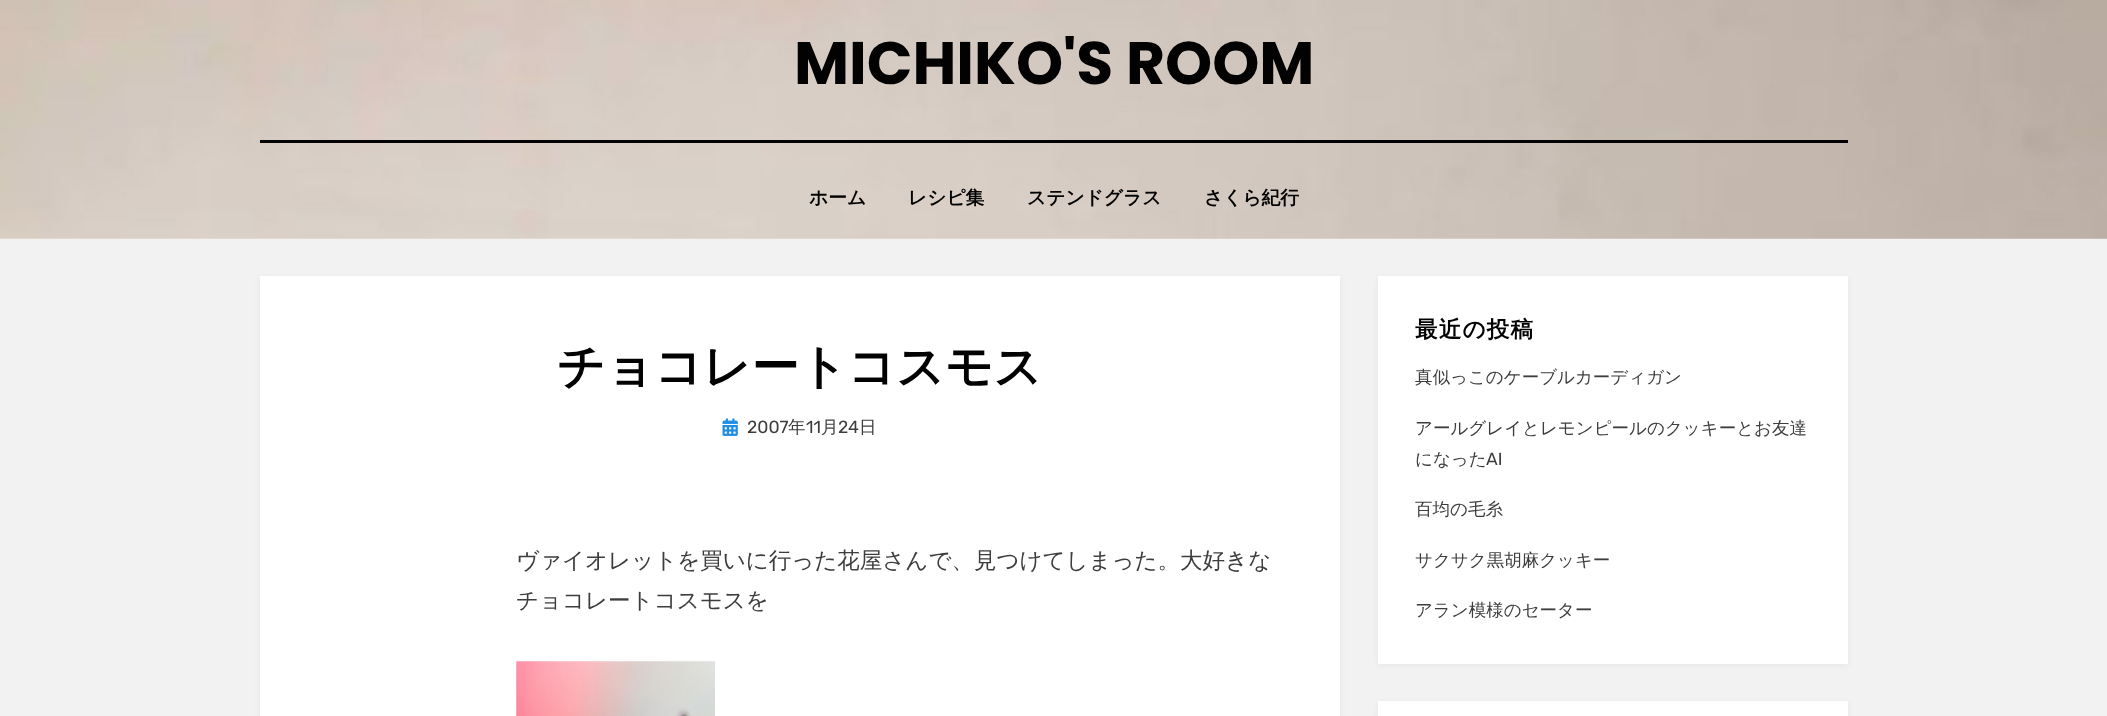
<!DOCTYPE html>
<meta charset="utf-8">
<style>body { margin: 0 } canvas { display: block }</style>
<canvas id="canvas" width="2107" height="716"></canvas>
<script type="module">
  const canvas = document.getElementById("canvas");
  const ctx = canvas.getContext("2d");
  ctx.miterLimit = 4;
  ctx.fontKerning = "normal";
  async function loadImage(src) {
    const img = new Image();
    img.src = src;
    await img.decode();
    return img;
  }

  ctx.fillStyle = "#f2f2f2";
  ctx.fillRect(0, 0, 2107, 716);
  ctx.drawImage(await loadImage("img1.png"), 0, 0, 2107, 239);
  ctx.font = "bold 60px Poppins";
  ctx.fillStyle = "#020202";
  ctx.fillText("MICHIKO'S ROOM", 794, 84);
  ctx.fillRect(260, 140, 1588, 3);
  ctx.font = "bold 18.75px WenQuanYi Zen Hei";
  ctx.fillText("ホーム", 809, 204);
  ctx.fillText("レシピ集", 908, 204);
  ctx.fillText("ステンドグラス", 1027, 204);
  ctx.fillText("さくら紀行", 1204, 204);
  ctx.fillStyle = "rgba(0, 0, 1, 0.05)";
  ctx.filter = "blur(3px)";
  ctx.beginPath();
  ctx.rect(260, 278, 1080, 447);
  ctx.fill();
  ctx.filter = "none";
  ctx.fillStyle = "#ffffff";
  ctx.fillRect(260, 276, 1080, 440);
  ctx.font = "bold 47.5px WenQuanYi Zen Hei";
  ctx.fillStyle = "#020202";
  ctx.fillText("チョコレートコスモス", 557, 383);
  ctx.drawImage(await loadImage("img2.png"), 722, 418, 16, 18);
  ctx.font = "17.5px Rubik";
  ctx.fillStyle = "#3d3d3d";
  ctx.fillText("2007", 747, 433);
  ctx.font = "500 17.5px WenQuanYi Zen Hei";
  ctx.fillText("年", 788, 433);
  ctx.font = "17.5px Rubik";
  ctx.fillText("11", 806, 433);
  ctx.font = "500 17.5px WenQuanYi Zen Hei";
  ctx.fillText("月", 821, 433);
  ctx.font = "17.5px Rubik";
  ctx.fillText("24", 838, 433);
  ctx.font = "500 17.5px WenQuanYi Zen Hei";
  ctx.fillText("日", 859, 433);
  ctx.font = "500 22.5px WenQuanYi Zen Hei";
  ctx.fillText("ヴァイオレットを買いに行った花屋さんで、見つけてしまった。大好きな", 516, 568);
  ctx.fillText("チョコレートコスモスを", 516, 608);
  ctx.drawImage(await loadImage("img3.png"), 516, 661, 199, 55);
  ctx.fillStyle = "rgba(0, 0, 1, 0.05)";
  ctx.filter = "blur(3px)";
  ctx.beginPath();
  ctx.rect(1378, 278, 470, 387);
  ctx.fill();
  ctx.filter = "none";
  ctx.fillStyle = "#ffffff";
  ctx.fillRect(1378, 276, 470, 388);
  ctx.letterSpacing = "1.25px";
  ctx.font = "bold 22.5px WenQuanYi Zen Hei";
  ctx.fillStyle = "#020202";
  ctx.fillText("最近の投稿", 1415, 337);
  ctx.letterSpacing = "0px";
  ctx.font = "500 17.5px WenQuanYi Zen Hei";
  ctx.fillStyle = "#3d3d3d";
  ctx.fillText("真似っこのケーブルカーディガン", 1415, 383);
  ctx.fillText("アールグレイとレモンピールのクッキーとお友達", 1415, 434);
  ctx.fillText("になった", 1415, 465);
  ctx.font = "17.5px Rubik";
  ctx.fillText("AI", 1486, 465);
  ctx.font = "500 17.5px WenQuanYi Zen Hei";
  ctx.fillText("百均の毛糸", 1415, 515);
  ctx.fillText("サクサク黒胡麻クッキー", 1415, 566);
  ctx.fillText("アラン模様のセーター", 1415, 616);
  ctx.fillStyle = "rgba(0, 0, 1, 0.05)";
  ctx.filter = "blur(3px)";
  ctx.beginPath();
  ctx.rect(1378, 703, 470, 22);
  ctx.fill();
  ctx.filter = "none";
  ctx.fillStyle = "#ffffff";
  ctx.fillRect(1378, 701, 470, 15);
</script>
